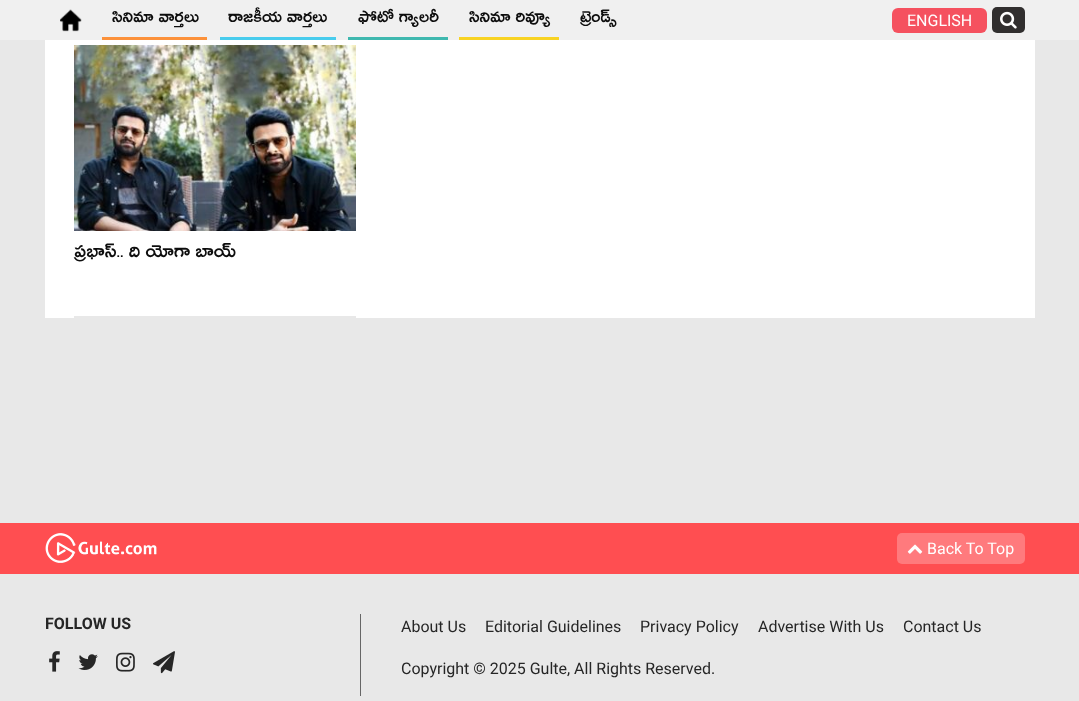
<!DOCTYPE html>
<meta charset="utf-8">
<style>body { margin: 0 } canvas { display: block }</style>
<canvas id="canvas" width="1079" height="701"></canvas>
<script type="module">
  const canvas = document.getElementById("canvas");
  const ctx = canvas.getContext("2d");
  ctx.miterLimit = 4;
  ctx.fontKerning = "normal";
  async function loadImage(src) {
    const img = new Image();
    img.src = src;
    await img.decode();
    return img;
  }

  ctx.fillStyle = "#e8e8e8";
  ctx.fillRect(0, 0, 1079, 701);
  ctx.fillStyle = "#f0f0f0";
  ctx.fillRect(0, 0, 1079, 40);
  ctx.drawImage(await loadImage("img1.png"), 60, 9, 22, 23);
  ctx.font = "18px Ramabhadra";
  ctx.fillStyle = "#0d0d0d";
  ctx.fillText("సినిమా వార్తలు", 112, 22);
  ctx.fillStyle = "#fc913a";
  ctx.fillRect(102, 37, 105, 3);
  ctx.fillStyle = "#0d0d0d";
  ctx.fillText("రాజకీయ వార్తలు", 228, 22);
  ctx.fillStyle = "#48cced";
  ctx.fillRect(220, 37, 116, 3);
  ctx.fillStyle = "#0d0d0d";
  ctx.fillText("ఫోటో గ్యాలరీ", 358, 22);
  ctx.fillStyle = "#3fb8af";
  ctx.fillRect(348, 37, 100, 3);
  ctx.fillStyle = "#0d0d0d";
  ctx.fillText("సినిమా రివ్యూ", 469, 22);
  ctx.fillStyle = "#f8d323";
  ctx.fillRect(459, 37, 100, 3);
  ctx.fillStyle = "#0d0d0d";
  ctx.fillText("ట్రెండ్స్", 580, 22);
  ctx.fillStyle = "#f5515f";
  ctx.beginPath();
  ctx.roundRect(892, 8, 95, 25, 6);
  ctx.fill();
  ctx.font = "16px Roboto";
  ctx.fillStyle = "#ffffff";
  ctx.fillText("ENGLISH", 907, 26);
  ctx.fillStyle = "#312f2f";
  ctx.beginPath();
  ctx.roundRect(992, 7, 33, 26, 5);
  ctx.fill();
  ctx.drawImage(await loadImage("img2.png"), 1000, 11, 17, 18);
  ctx.fillStyle = "#ffffff";
  ctx.fillRect(45, 40, 990, 278);
  ctx.fillStyle = "#e8e8e8";
  ctx.fillRect(74, 316, 282, 2);
  ctx.drawImage(await loadImage("img3.png"), 74, 45, 282, 186);
  ctx.font = "20px Ramabhadra";
  ctx.fillStyle = "#0d0d0d";
  ctx.fillText("ప్రభాస్.. ది యోగా బాయ్", 74, 257);
  ctx.fillStyle = "#ff4e51";
  ctx.fillRect(0, 523, 1079, 51);
  ctx.drawImage(await loadImage("img4.png"), 45, 533, 112, 30);
  ctx.fillStyle = "#ff7a7d";
  ctx.beginPath();
  ctx.roundRect(897, 533, 128, 31, 5);
  ctx.fill();
  ctx.drawImage(await loadImage("img5.png"), 907, 544, 16, 10);
  ctx.font = "16px Roboto";
  ctx.fillStyle = "#ffffff";
  ctx.fillText("Back To Top", 927, 554);
  ctx.fillStyle = "#666666";
  ctx.fillRect(360, 614, 1, 82);
  ctx.font = "bold 16px Roboto";
  ctx.fillStyle = "#262626";
  ctx.fillText("FOLLOW US", 45, 629);
  ctx.drawImage(await loadImage("img6.png"), 49, 651, 11, 21);
  ctx.drawImage(await loadImage("img7.png"), 78, 654, 20, 16);
  ctx.drawImage(await loadImage("img8.png"), 116, 652, 19, 20);
  ctx.drawImage(await loadImage("img9.png"), 153, 651, 22, 23);
  ctx.font = "16px Roboto";
  ctx.fillText("About Us", 401, 632);
  ctx.fillText("Editorial Guidelines", 485, 632);
  ctx.fillText("Privacy Policy", 640, 632);
  ctx.fillText("Advertise With Us", 758, 632);
  ctx.fillText("Contact Us", 903, 632);
  ctx.fillText("Copyright © 2025 Gulte, All Rights Reserved.", 401, 674);
</script>
